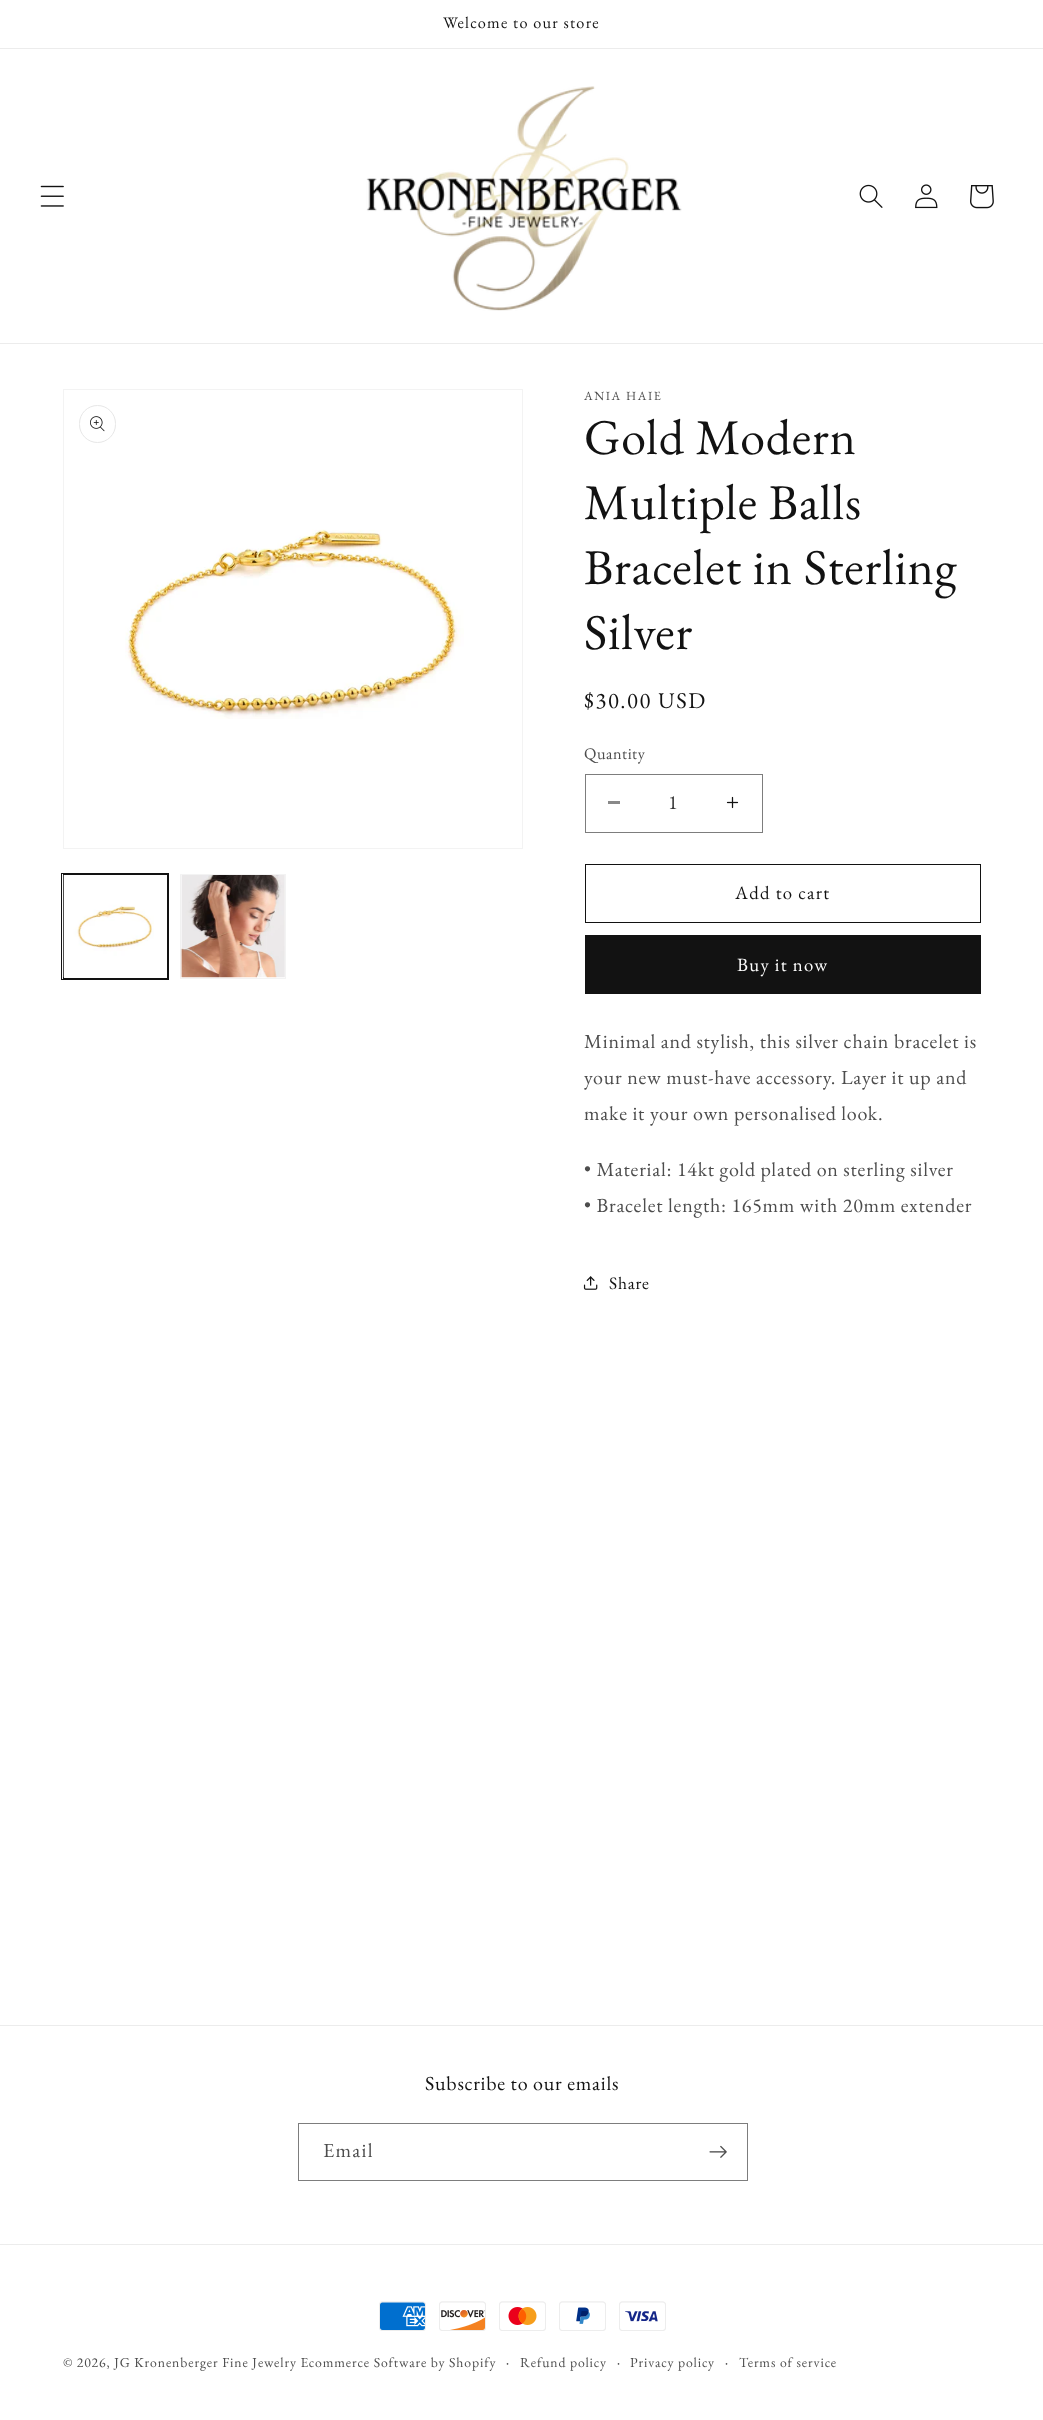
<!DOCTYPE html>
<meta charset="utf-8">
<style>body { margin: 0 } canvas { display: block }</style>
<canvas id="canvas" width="1043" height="2420"></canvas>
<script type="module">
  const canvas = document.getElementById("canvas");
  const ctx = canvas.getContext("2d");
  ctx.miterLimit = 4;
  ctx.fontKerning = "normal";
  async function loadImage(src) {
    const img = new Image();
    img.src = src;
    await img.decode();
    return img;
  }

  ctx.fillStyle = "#ffffff";
  ctx.fillRect(0, 0, 1043, 2420);
  ctx.fillStyle = "#ececec";
  ctx.fillRect(0, 48, 1043, 1);
  ctx.letterSpacing = "1.25px";
  ctx.font = "16.25px EB Garamond";
  ctx.fillStyle = "#121212";
  ctx.fillText("Welcome to our store", 443, 28);
  ctx.fillStyle = "#ececec";
  ctx.fillRect(0, 343, 1043, 1);
  ctx.drawImage(await loadImage("img1.png"), 40, 185, 24, 22);
  ctx.drawImage(await loadImage("img2.png"), 366, 86, 316, 225);
  ctx.drawImage(await loadImage("img3.png"), 859, 184, 24, 24);
  ctx.drawImage(await loadImage("img4.png"), 915, 184, 23, 25);
  ctx.drawImage(await loadImage("img5.png"), 970, 185, 24, 24);
  ctx.strokeStyle = "#f3f3f3";
  ctx.strokeRect(63.5, 389.5, 459, 459);
  ctx.beginPath();
  ctx.roundRect(79.5, 405.5, 36, 37, 18);
  ctx.strokeStyle = "#e7e7e7";
  ctx.stroke();
  ctx.drawImage(await loadImage("img6.png"), 90, 416, 15, 16);
  ctx.drawImage(await loadImage("img7.png"), 125, 529, 339, 190);
  ctx.strokeStyle = "#121212";
  ctx.strokeRect(61.5, 873.5, 107, 106);
  ctx.strokeRect(63.5, 874.5, 104, 104);
  ctx.drawImage(await loadImage("img8.png"), 63, 875, 91, 103);
  ctx.strokeStyle = "#f3f3f3";
  ctx.strokeRect(180.5, 874.5, 105, 104);
  ctx.drawImage(await loadImage("img9.png"), 180, 875, 105, 103);
  ctx.letterSpacing = "1.6px";
  ctx.font = "12.5px EB Garamond";
  ctx.fillStyle = "#4d4d4d";
  ctx.fillText("ANIA HAIE", 584, 400);
  ctx.letterSpacing = "0.75px";
  ctx.font = "50px EB Garamond";
  ctx.fillStyle = "#121212";
  ctx.fillText("Gold Modern", 584, 454);
  ctx.fillText("Multiple Balls", 584, 519);
  ctx.fillText("Bracelet in Sterling", 584, 584);
  ctx.fillText("Silver", 584, 649);
  ctx.letterSpacing = "1.6px";
  ctx.font = "22.5px EB Garamond";
  ctx.fillText("$30.00 USD", 584, 708);
  ctx.letterSpacing = "0.5px";
  ctx.font = "16.25px EB Garamond";
  ctx.fillStyle = "#4d4d4d";
  ctx.fillText("Quantity", 584, 759);
  ctx.fillStyle = "#898989";
  ctx.fillRect(608, 801, 12, 3);
  ctx.drawImage(await loadImage("img10.png"), 726, 796, 13, 13);
  ctx.strokeStyle = "#7d7d7d";
  ctx.strokeRect(585.5, 774.5, 177, 58);
  ctx.letterSpacing = "0px";
  ctx.font = "20px EB Garamond";
  ctx.fillStyle = "#363636";
  ctx.fillText("1", 668, 809);
  ctx.strokeStyle = "#121212";
  ctx.strokeRect(585.5, 864.5, 395, 58);
  ctx.letterSpacing = "1.25px";
  ctx.font = "18.75px EB Garamond";
  ctx.fillStyle = "#121212";
  ctx.fillText("Add to cart", 735, 899);
  ctx.fillRect(585, 935, 396, 59);
  ctx.fillStyle = "#ffffff";
  ctx.fillText("Buy it now", 737, 971);
  ctx.letterSpacing = "0.75px";
  ctx.font = "20px EB Garamond";
  ctx.fillStyle = "#4d4d4d";
  ctx.fillText("Minimal and stylish, this silver chain bracelet is", 584, 1048);
  ctx.fillText("your new must-have accessory. Layer it up and", 584, 1084);
  ctx.fillText("make it your own personalised look.", 584, 1120);
  ctx.fillText("• Material: 14kt gold plated on sterling silver", 584, 1176);
  ctx.fillText("• Bracelet length: 165mm with 20mm extender", 584, 1212);
  ctx.drawImage(await loadImage("img11.png"), 583, 1276, 15, 14);
  ctx.font = "17.5px EB Garamond";
  ctx.fillStyle = "#121212";
  ctx.fillText("Share", 609, 1289);
  ctx.fillStyle = "#ececec";
  ctx.fillRect(0, 2025, 1043, 1);
  ctx.font = "20px EB Garamond";
  ctx.fillStyle = "#121212";
  ctx.fillText("Subscribe to our emails", 425, 2090);
  ctx.strokeStyle = "#7d7d7d";
  ctx.strokeRect(298.5, 2123.5, 449, 57);
  ctx.letterSpacing = "1.25px";
  ctx.fillStyle = "#4d4d4d";
  ctx.fillText("Email", 323, 2157);
  ctx.drawImage(await loadImage("img12.png"), 709, 2145, 18, 13);
  ctx.fillStyle = "#ececec";
  ctx.fillRect(0, 2244, 1043, 1);
  ctx.drawImage(await loadImage("img13.png"), 379, 2301, 47, 30);
  ctx.drawImage(await loadImage("img14.png"), 439, 2301, 47, 30);
  ctx.drawImage(await loadImage("img15.png"), 499, 2301, 47, 30);
  ctx.drawImage(await loadImage("img16.png"), 559, 2301, 47, 30);
  ctx.drawImage(await loadImage("img17.png"), 619, 2301, 47, 30);
  ctx.letterSpacing = "0.88px";
  ctx.font = "13.75px EB Garamond";
  ctx.fillStyle = "#4d4d4d";
  ctx.fillText("© 2026, JG Kronenberger Fine Jewelry Ecommerce Software by Shopify", 63, 2367);
  ctx.font = "15px EB Garamond";
  ctx.fillText("·", 506, 2367);
  ctx.font = "13.75px EB Garamond";
  ctx.fillText("Refund policy", 520, 2367);
  ctx.font = "15px EB Garamond";
  ctx.fillText("·", 617, 2367);
  ctx.font = "13.75px EB Garamond";
  ctx.fillText("Privacy policy", 630, 2367);
  ctx.font = "15px EB Garamond";
  ctx.fillText("·", 725, 2367);
  ctx.font = "13.75px EB Garamond";
  ctx.fillText("Terms of service", 739, 2367);
</script>
